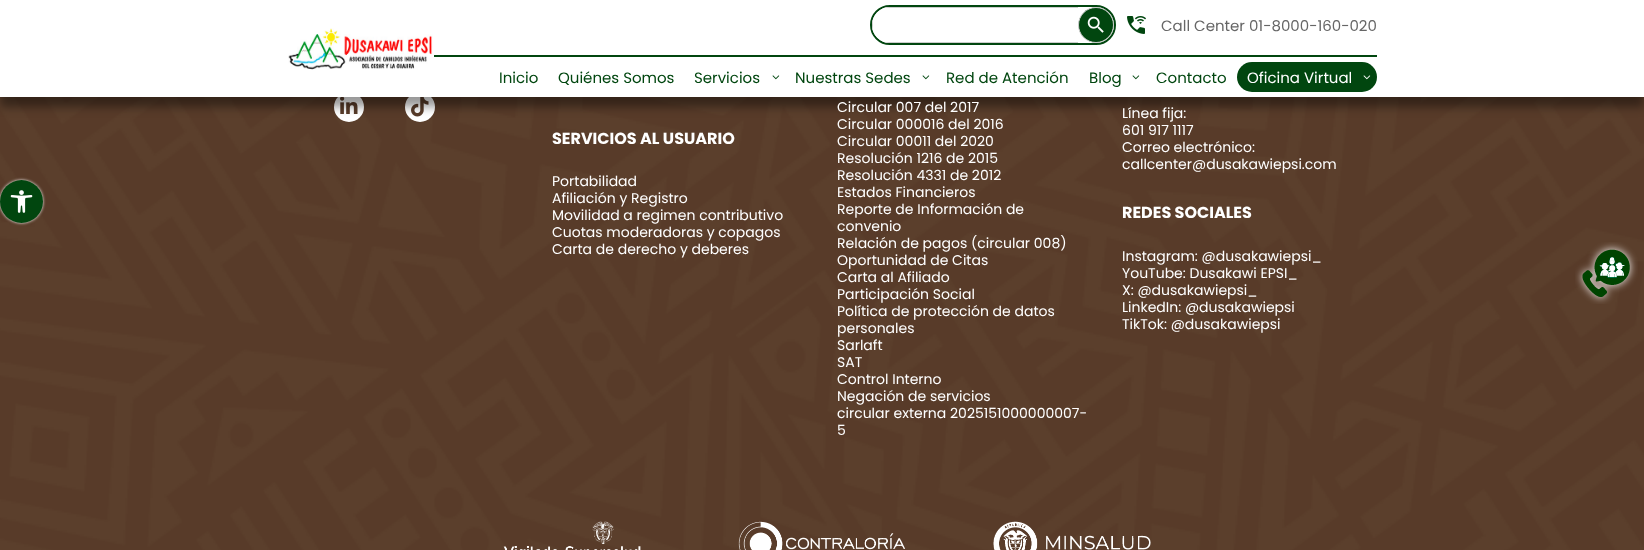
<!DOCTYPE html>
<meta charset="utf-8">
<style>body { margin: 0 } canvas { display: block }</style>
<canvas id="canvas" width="1644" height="550"></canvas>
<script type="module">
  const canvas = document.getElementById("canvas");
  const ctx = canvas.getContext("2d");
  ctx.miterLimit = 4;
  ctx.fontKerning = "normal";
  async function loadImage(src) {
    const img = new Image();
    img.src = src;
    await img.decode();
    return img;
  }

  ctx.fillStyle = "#ffffff";
  ctx.fillRect(0, 0, 1644, 550);
  ctx.drawImage(await loadImage("img7.png"), 0, 97, 1644, 453);
  ctx.beginPath();
  ctx.arc(349, 107, 15, 0, Math.PI * 2);
  ctx.fill();
  ctx.drawImage(await loadImage("img8.png"), 340, 97, 18, 17);
  ctx.beginPath();
  ctx.arc(420, 107, 15, 0, Math.PI * 2);
  ctx.fill();
  ctx.drawImage(await loadImage("img9.png"), 411, 97, 18, 20);
  ctx.fillStyle = "rgba(0, 0, 0, 0.4)";
  ctx.filter = "blur(5px)";
  ctx.beginPath();
  ctx.rect(0, 10, 1644, 97);
  ctx.fill();
  ctx.filter = "none";
  ctx.fillStyle = "#ffffff";
  ctx.fillRect(0, 0, 1644, 97);
  ctx.drawImage(await loadImage("img1.png"), 288, 28, 145, 42);
  ctx.fillStyle = "#01460f";
  ctx.fillRect(434, 55, 943, 2);
  ctx.beginPath();
  ctx.roundRect(871, 6, 244, 38, 19);
  ctx.strokeStyle = "#01460f";
  ctx.lineWidth = 2;
  ctx.stroke();
  ctx.fillStyle = "#ffffff";
  ctx.beginPath();
  ctx.roundRect(872, 7, 206, 36, [18, 0, 0, 18]);
  ctx.fill();
  ctx.save();
  ctx.beginPath();
  ctx.roundRect(872, 7, 242, 36, 18);
  ctx.clip();
  ctx.fillStyle = "#cccccc";
  ctx.fillRect(884, 7, 194, 1);
  ctx.fillRect(884, 42, 194, 1);
  ctx.fillRect(872, 19, 1, 12);
  ctx.restore();
  ctx.fillStyle = "#01460f";
  ctx.beginPath();
  ctx.arc(1096, 25, 17.5, 0, Math.PI * 2);
  ctx.fill();
  ctx.strokeStyle = "#cccccc";
  ctx.lineWidth = 1;
  ctx.stroke();
  ctx.drawImage(await loadImage("img2.png"), 1087, 16, 17, 17);
  ctx.drawImage(await loadImage("img3.png"), 1127, 16, 19, 18);
  ctx.font = "15px Poppins";
  ctx.fillStyle = "#666666";
  ctx.fillText("Call Center 01-8000-160-020", 1161, 31);
  ctx.fillStyle = "#01460f";
  ctx.fillText("Inicio", 499, 83);
  ctx.fillText("Quiénes Somos", 558, 83);
  ctx.fillText("Servicios", 694, 83);
  ctx.drawImage(await loadImage("img4.png"), 772, 75, 8, 5);
  ctx.fillText("Nuestras Sedes", 795, 83);
  ctx.drawImage(await loadImage("img4.png"), 922, 75, 8, 5);
  ctx.fillText("Red de Atención", 946, 83);
  ctx.fillText("Blog", 1089, 83);
  ctx.drawImage(await loadImage("img4.png"), 1132, 75, 8, 5);
  ctx.fillText("Contacto", 1156, 83);
  ctx.beginPath();
  ctx.roundRect(1237, 62, 140, 30, 15);
  ctx.fill();
  ctx.fillStyle = "#ffffff";
  ctx.fillText("Oficina Virtual", 1247, 83);
  ctx.drawImage(await loadImage("img5.png"), 1363, 75, 8, 5);
  ctx.filter = "blur(1.5px)";
  ctx.beginPath();
  ctx.roundRect(0, 180, 43, 43, 21.5);
  ctx.fill();
  ctx.filter = "none";
  ctx.fillStyle = "#01460f";
  ctx.beginPath();
  ctx.arc(21.5, 201.5, 21.5, 0, Math.PI * 2);
  ctx.fill();
  ctx.drawImage(await loadImage("img6.png"), 10, 190, 23, 23);
  ctx.font = "bold 16px Poppins";
  ctx.fillStyle = "#ffffff";
  ctx.fillText("SERVICIOS AL USUARIO", 552, 144);
  ctx.font = "14px Poppins";
  ctx.fillText("Portabilidad", 552, 186);
  ctx.fillText("Afiliación y Registro", 552, 203);
  ctx.fillText("Movilidad a regimen contributivo", 552, 220);
  ctx.fillText("Cuotas moderadoras y copagos", 552, 237);
  ctx.fillText("Carta de derecho y deberes", 552, 254);
  ctx.fillText("Circular 007 del 2017", 837, 112);
  ctx.fillText("Circular 000016 del 2016", 837, 129);
  ctx.fillText("Circular 00011 del 2020", 837, 146);
  ctx.fillText("Resolución 1216 de 2015", 837, 163);
  ctx.fillText("Resolución 4331 de 2012", 837, 180);
  ctx.fillText("Estados Financieros", 837, 197);
  ctx.fillText("Reporte de Información de", 837, 214);
  ctx.fillText("convenio", 837, 231);
  ctx.fillText("Relación de pagos (circular 008)", 837, 248);
  ctx.fillText("Oportunidad de Citas", 837, 265);
  ctx.fillText("Carta al Afiliado", 837, 282);
  ctx.fillText("Participación Social", 837, 299);
  ctx.fillText("Política de protección de datos", 837, 316);
  ctx.fillText("personales", 837, 333);
  ctx.fillText("Sarlaft", 837, 350);
  ctx.fillText("SAT", 837, 367);
  ctx.fillText("Control Interno", 837, 384);
  ctx.fillText("Negación de servicios", 837, 401);
  ctx.fillText("circular externa 2025151000000007-", 837, 418);
  ctx.fillText("5", 837, 435);
  ctx.fillText("Línea fija:", 1122, 118);
  ctx.fillText("601 917 1117", 1122, 135);
  ctx.fillText("Correo electrónico:", 1122, 152);
  ctx.fillText("callcenter@dusakawiepsi.com", 1122, 169);
  ctx.font = "bold 16px Poppins";
  ctx.fillText("REDES SOCIALES", 1122, 218);
  ctx.font = "14px Poppins";
  ctx.fillText("Instagram: @dusakawiepsi_", 1122, 261);
  ctx.fillText("YouTube: Dusakawi EPSI_", 1122, 278);
  ctx.fillText("X: @dusakawiepsi_", 1122, 295);
  ctx.fillText("LinkedIn: @dusakawiepsi", 1122, 312);
  ctx.fillText("TikTok: @dusakawiepsi", 1122, 329);
  ctx.drawImage(await loadImage("img10.png"), 503, 521, 138, 29);
  ctx.drawImage(await loadImage("img11.png"), 738, 521, 167, 29);
  ctx.drawImage(await loadImage("img12.png"), 993, 521, 158, 29);
  ctx.drawImage(await loadImage("img13.png"), 1575, 242, 63, 62);
</script>
